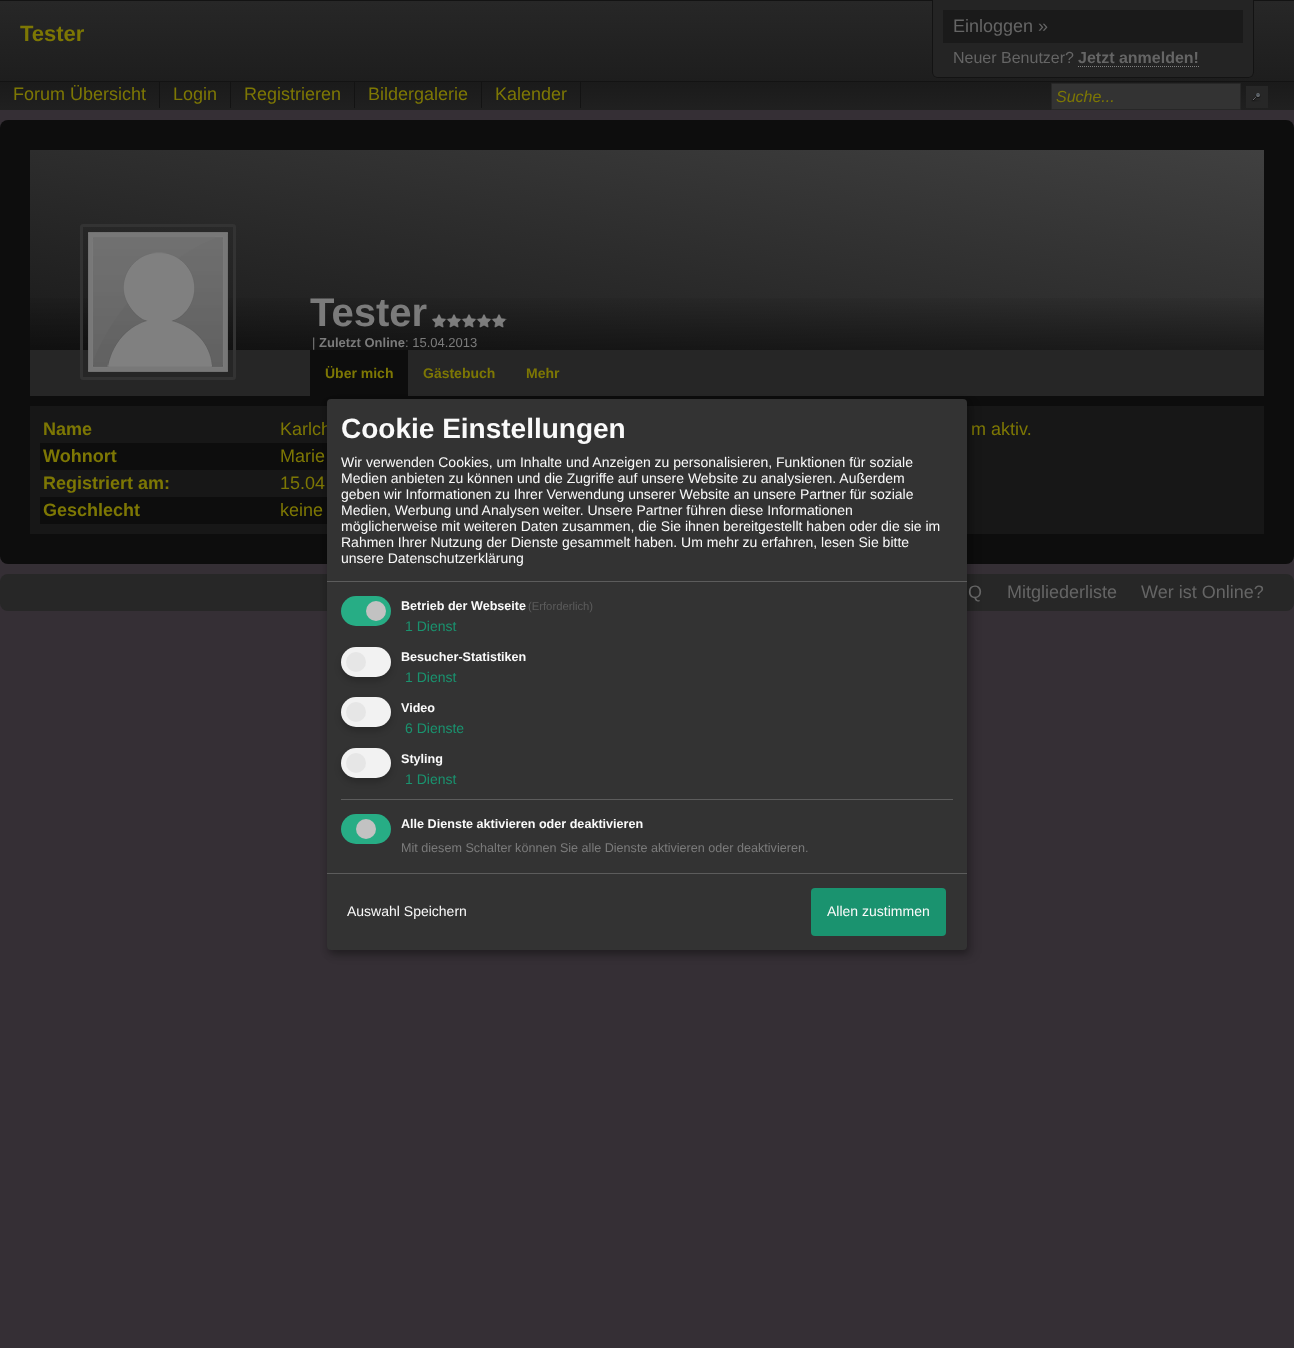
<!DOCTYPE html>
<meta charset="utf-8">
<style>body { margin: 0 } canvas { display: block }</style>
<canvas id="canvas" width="1294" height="1348"></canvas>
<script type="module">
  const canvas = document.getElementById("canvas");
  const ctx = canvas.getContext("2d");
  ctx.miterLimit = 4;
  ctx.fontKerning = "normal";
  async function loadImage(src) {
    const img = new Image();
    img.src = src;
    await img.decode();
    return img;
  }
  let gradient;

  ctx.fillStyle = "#352f35";
  ctx.fillRect(0, 0, 1294, 1348);
  ctx.fillStyle = "#131313";
  ctx.fillRect(0, 0, 1294, 1);
  gradient = ctx.createLinearGradient(0, 1, 0, 110);
  gradient.addColorStop(0, "#272727");
  gradient.addColorStop(1, "#1a1a1a");
  ctx.fillStyle = gradient;
  ctx.fillRect(0, 1, 1294, 80);
  ctx.fillStyle = "#242424";
  ctx.beginPath();
  ctx.roundRect(932, 0, 322, 78, [0, 0, 6, 6]);
  ctx.fill();
  ctx.fillStyle = "#131313";
  ctx.beginPath();
  ctx.moveTo(932, 0);
  ctx.lineTo(1254, 0);
  ctx.lineTo(1254, 72);
  ctx.bezierCurveTo(1254, 75, 1251, 78, 1248, 78);
  ctx.lineTo(938, 78);
  ctx.bezierCurveTo(935, 78, 932, 75, 932, 72);
  ctx.closePath();
  ctx.moveTo(933, 0);
  ctx.lineTo(1253, 0);
  ctx.lineTo(1253, 72);
  ctx.bezierCurveTo(1253, 75, 1251, 77, 1248, 77);
  ctx.lineTo(938, 77);
  ctx.bezierCurveTo(935, 77, 933, 75, 933, 72);
  ctx.closePath();
  ctx.fill("evenodd");
  ctx.fillStyle = "#1a1a1a";
  ctx.fillRect(943, 10, 300, 33);
  ctx.font = "18px Liberation Sans";
  ctx.fillStyle = "#656565";
  ctx.fillText("Einloggen »", 953, 32);
  ctx.font = "16px Liberation Sans";
  ctx.fillText("Neuer Benutzer?", 953, 63);
  ctx.font = "bold 16px Liberation Sans";
  ctx.fillText("Jetzt anmelden!", 1078, 63);
  ctx.beginPath();
  ctx.moveTo(1078, 66.5);
  ctx.lineTo(1199, 66.5);
  ctx.strokeStyle = "#808080";
  ctx.setLineDash([1, 1]);
  ctx.stroke();
  ctx.font = "bold 22px Liberation Sans";
  ctx.fillStyle = "#7d7704";
  ctx.fillText("Tester", 20, 41);
  gradient = ctx.createLinearGradient(0, 81, 0, 110);
  gradient.addColorStop(0, "#1a1a1a");
  gradient.addColorStop(1, "#202020");
  ctx.fillStyle = gradient;
  ctx.fillRect(0, 82, 1294, 28);
  ctx.fillStyle = "#131313";
  ctx.fillRect(0, 81, 1294, 1);
  ctx.font = "18px Liberation Sans";
  ctx.fillStyle = "#7d7704";
  ctx.fillText("Forum Übersicht", 13, 100);
  ctx.fillStyle = "#131313";
  ctx.fillRect(159, 81, 1, 27);
  ctx.fillStyle = "#7d7704";
  ctx.fillText("Login", 173, 100);
  ctx.fillStyle = "#131313";
  ctx.fillRect(230, 81, 1, 27);
  ctx.fillStyle = "#7d7704";
  ctx.fillText("Registrieren", 244, 100);
  ctx.fillStyle = "#131313";
  ctx.fillRect(354, 81, 1, 27);
  ctx.fillStyle = "#7d7704";
  ctx.fillText("Bildergalerie", 368, 100);
  ctx.fillStyle = "#131313";
  ctx.fillRect(580, 81, 1, 27);
  ctx.fillRect(481, 81, 1, 27);
  ctx.fillStyle = "#7d7704";
  ctx.fillText("Kalender", 495, 100);
  ctx.fillStyle = "#333333";
  ctx.beginPath();
  ctx.rect(1051.5, 83.5, 189, 26);
  ctx.fill();
  ctx.strokeStyle = "#272727";
  ctx.setLineDash([]);
  ctx.stroke();
  ctx.font = "italic 16px Liberation Sans";
  ctx.fillStyle = "#7d7704";
  ctx.fillText("Suche...", 1056, 102);
  ctx.fillStyle = "#272727";
  ctx.fillRect(1246, 86, 22, 22);
  ctx.drawImage(await loadImage("img1.png"), 1251, 93, 10, 9);
  ctx.fillStyle = "#0d0d0d";
  ctx.beginPath();
  ctx.roundRect(0, 120, 1294, 444, 8);
  ctx.fill();
  ctx.fillStyle = "#171717";
  ctx.fillRect(30, 406, 1234, 128);
  gradient = ctx.createLinearGradient(615, 445, 679, 55);
  gradient.addColorStop(0, "#1a1a1a");
  gradient.addColorStop(1, "#404040");
  ctx.fillStyle = gradient;
  ctx.fillRect(30, 150, 1234, 200);
  gradient = ctx.createLinearGradient(647, 350, 647, 290);
  gradient.addColorStop(0, "rgba(0, 0, 0, 0.4)");
  gradient.addColorStop(1, "rgba(0, 0, 0, 0)");
  ctx.fillStyle = gradient;
  ctx.fillRect(30, 298, 1234, 52);
  ctx.font = "bold 40px Liberation Sans";
  ctx.fillStyle = "#7b7b7b";
  ctx.fillText("Tester", 310, 326);
  ctx.drawImage(await loadImage("img2.png"), 432, 314, 75, 15);
  ctx.font = "13px Liberation Sans";
  ctx.fillText("|", 312, 347);
  ctx.font = "bold 13px Liberation Sans";
  ctx.fillText("Zuletzt Online", 319, 347);
  ctx.font = "13px Liberation Sans";
  ctx.fillText(": 15.04.2013", 405, 347);
  ctx.fillStyle = "#262626";
  ctx.fillRect(30, 350, 1234, 46);
  ctx.beginPath();
  ctx.roundRect(81.5, 225.5, 153, 153, 1.5);
  ctx.strokeStyle = "#333333";
  ctx.lineWidth = 3;
  ctx.stroke();
  ctx.drawImage(await loadImage("img3.png"), 88, 232, 140, 140);
  ctx.fillStyle = "#0d0d0d";
  ctx.fillRect(310, 350, 98, 46);
  ctx.font = "bold 14px Liberation Sans";
  ctx.fillStyle = "#7d7704";
  ctx.fillText("Über mich", 325, 378);
  ctx.fillText("Gästebuch", 423, 378);
  ctx.fillText("Mehr", 526, 378);
  ctx.font = "bold 18px Liberation Sans";
  ctx.fillText("Name", 43, 435);
  ctx.font = "18px Liberation Sans";
  ctx.fillText("Karlch", 280, 435);
  ctx.fillStyle = "#0d0d0d";
  ctx.fillRect(40, 443, 287, 27);
  ctx.font = "bold 18px Liberation Sans";
  ctx.fillStyle = "#7d7704";
  ctx.fillText("Wohnort", 43, 462);
  ctx.font = "18px Liberation Sans";
  ctx.fillText("Marie", 280, 462);
  ctx.font = "bold 18px Liberation Sans";
  ctx.fillText("Registriert am:", 43, 489);
  ctx.font = "18px Liberation Sans";
  ctx.fillText("15.04", 280, 489);
  ctx.fillStyle = "#0d0d0d";
  ctx.fillRect(40, 497, 287, 27);
  ctx.font = "bold 18px Liberation Sans";
  ctx.fillStyle = "#7d7704";
  ctx.fillText("Geschlecht", 43, 516);
  ctx.font = "18px Liberation Sans";
  ctx.fillText("keine", 280, 516);
  ctx.fillText("m aktiv.", 971, 435);
  ctx.fillStyle = "#272727";
  ctx.beginPath();
  ctx.roundRect(0, 574, 1294, 37, 8);
  ctx.fill();
  ctx.fillStyle = "rgba(0, 0, 0, 0.19)";
  ctx.filter = "blur(5px)";
  ctx.beginPath();
  ctx.roundRect(332, 404, 640, 551, 4);
  ctx.fill();
  ctx.filter = "none";
  ctx.fillStyle = "rgba(0, 0, 0, 0.2)";
  ctx.filter = "blur(3px)";
  ctx.beginPath();
  ctx.roundRect(327, 403, 640, 551, 4);
  ctx.fill();
  ctx.filter = "none";
  ctx.fillStyle = "#333333";
  ctx.beginPath();
  ctx.roundRect(327, 399, 640, 551, 4);
  ctx.fill();
  ctx.fillStyle = "#5c5c5c";
  ctx.fillRect(327, 581, 640, 1);
  ctx.font = "bold 28px Liberation Sans";
  ctx.fillStyle = "#fafafa";
  ctx.fillText("Cookie Einstellungen", 341, 438);
  ctx.font = "14px Liberation Sans";
  ctx.fillText("Wir verwenden Cookies, um Inhalte und Anzeigen zu personalisieren, Funktionen für soziale", 341, 467);
  ctx.fillText("Medien anbieten zu können und die Zugriffe auf unsere Website zu analysieren. Außerdem", 341, 483);
  ctx.fillText("geben wir Informationen zu Ihrer Verwendung unserer Website an unsere Partner für soziale", 341, 499);
  ctx.fillText("Medien, Werbung und Analysen weiter. Unsere Partner führen diese Informationen", 341, 515);
  ctx.fillText("möglicherweise mit weiteren Daten zusammen, die Sie ihnen bereitgestellt haben oder die sie im", 341, 531);
  ctx.fillText("Rahmen Ihrer Nutzung der Dienste gesammelt haben. Um mehr zu erfahren, lesen Sie bitte", 341, 547);
  ctx.fillText("unsere Datenschutzerklärung", 341, 563);
  ctx.fillStyle = "#27ad85";
  ctx.beginPath();
  ctx.roundRect(341, 596, 50, 30, 15);
  ctx.fill();
  ctx.fillStyle = "#c2c2c2";
  ctx.beginPath();
  ctx.arc(376, 611, 10, 0, Math.PI * 2);
  ctx.fill();
  ctx.font = "bold 12.6px Liberation Sans";
  ctx.fillStyle = "#fafafa";
  ctx.fillText("Betrieb der Webseite", 401, 610);
  ctx.font = "11.25px Liberation Sans";
  ctx.fillStyle = "#5c5c5c";
  ctx.fillText("(Erforderlich)", 528, 610);
  ctx.font = "14px Liberation Sans";
  ctx.fillStyle = "#1a936f";
  ctx.fillText("1 Dienst", 405, 631);
  ctx.fillStyle = "rgba(0, 0, 0, 0.2)";
  ctx.filter = "blur(3px)";
  ctx.beginPath();
  ctx.roundRect(341, 651, 50, 30, 15);
  ctx.fill();
  ctx.filter = "none";
  ctx.fillStyle = "#f2f2f2";
  ctx.beginPath();
  ctx.roundRect(341, 647, 50, 30, 15);
  ctx.fill();
  ctx.fillStyle = "#e6e6e6";
  ctx.beginPath();
  ctx.arc(356, 662, 10, 0, Math.PI * 2);
  ctx.fill();
  ctx.font = "bold 12.6px Liberation Sans";
  ctx.fillStyle = "#fafafa";
  ctx.fillText("Besucher-Statistiken", 401, 661);
  ctx.font = "14px Liberation Sans";
  ctx.fillStyle = "#1a936f";
  ctx.fillText("1 Dienst", 405, 682);
  ctx.fillStyle = "rgba(0, 0, 0, 0.2)";
  ctx.filter = "blur(3px)";
  ctx.beginPath();
  ctx.roundRect(341, 701, 50, 30, 15);
  ctx.fill();
  ctx.filter = "none";
  ctx.fillStyle = "#f2f2f2";
  ctx.beginPath();
  ctx.roundRect(341, 697, 50, 30, 15);
  ctx.fill();
  ctx.fillStyle = "#e6e6e6";
  ctx.beginPath();
  ctx.arc(356, 712, 10, 0, Math.PI * 2);
  ctx.fill();
  ctx.font = "bold 12.6px Liberation Sans";
  ctx.fillStyle = "#fafafa";
  ctx.fillText("Video", 401, 712);
  ctx.font = "14px Liberation Sans";
  ctx.fillStyle = "#1a936f";
  ctx.fillText("6 Dienste", 405, 733);
  ctx.fillStyle = "rgba(0, 0, 0, 0.2)";
  ctx.filter = "blur(3px)";
  ctx.beginPath();
  ctx.roundRect(341, 752, 50, 30, 15);
  ctx.fill();
  ctx.filter = "none";
  ctx.fillStyle = "#f2f2f2";
  ctx.beginPath();
  ctx.roundRect(341, 748, 50, 30, 15);
  ctx.fill();
  ctx.fillStyle = "#e6e6e6";
  ctx.beginPath();
  ctx.arc(356, 763, 10, 0, Math.PI * 2);
  ctx.fill();
  ctx.font = "bold 12.6px Liberation Sans";
  ctx.fillStyle = "#fafafa";
  ctx.fillText("Styling", 401, 763);
  ctx.font = "14px Liberation Sans";
  ctx.fillStyle = "#1a936f";
  ctx.fillText("1 Dienst", 405, 784);
  ctx.fillStyle = "#5c5c5c";
  ctx.fillRect(341, 799, 612, 1);
  ctx.fillStyle = "#27ad85";
  ctx.beginPath();
  ctx.roundRect(341, 814, 50, 30, 15);
  ctx.fill();
  ctx.fillStyle = "#c2c2c2";
  ctx.beginPath();
  ctx.arc(366, 829, 10, 0, Math.PI * 2);
  ctx.fill();
  ctx.font = "bold 12.6px Liberation Sans";
  ctx.fillStyle = "#fafafa";
  ctx.fillText("Alle Dienste aktivieren oder deaktivieren", 401, 828);
  ctx.font = "12.6px Liberation Sans";
  ctx.fillStyle = "#7b7b7b";
  ctx.fillText("Mit diesem Schalter können Sie alle Dienste aktivieren oder deaktivieren.", 401, 852);
  ctx.fillStyle = "#5c5c5c";
  ctx.fillRect(327, 873, 640, 1);
  ctx.font = "14px Liberation Sans";
  ctx.fillStyle = "#fafafa";
  ctx.fillText("Auswahl Speichern", 347, 916);
  ctx.fillStyle = "#1a936f";
  ctx.beginPath();
  ctx.roundRect(811, 888, 135, 48, 4);
  ctx.fill();
  ctx.fillStyle = "#fafafa";
  ctx.fillText("Allen zustimmen", 827, 916);
  ctx.font = "18px Liberation Sans";
  ctx.fillStyle = "#656565";
  ctx.fillText("Q", 968, 598);
  ctx.fillText("Mitgliederliste", 1007, 598);
  ctx.fillText("Wer ist Online?", 1141, 598);
</script>
